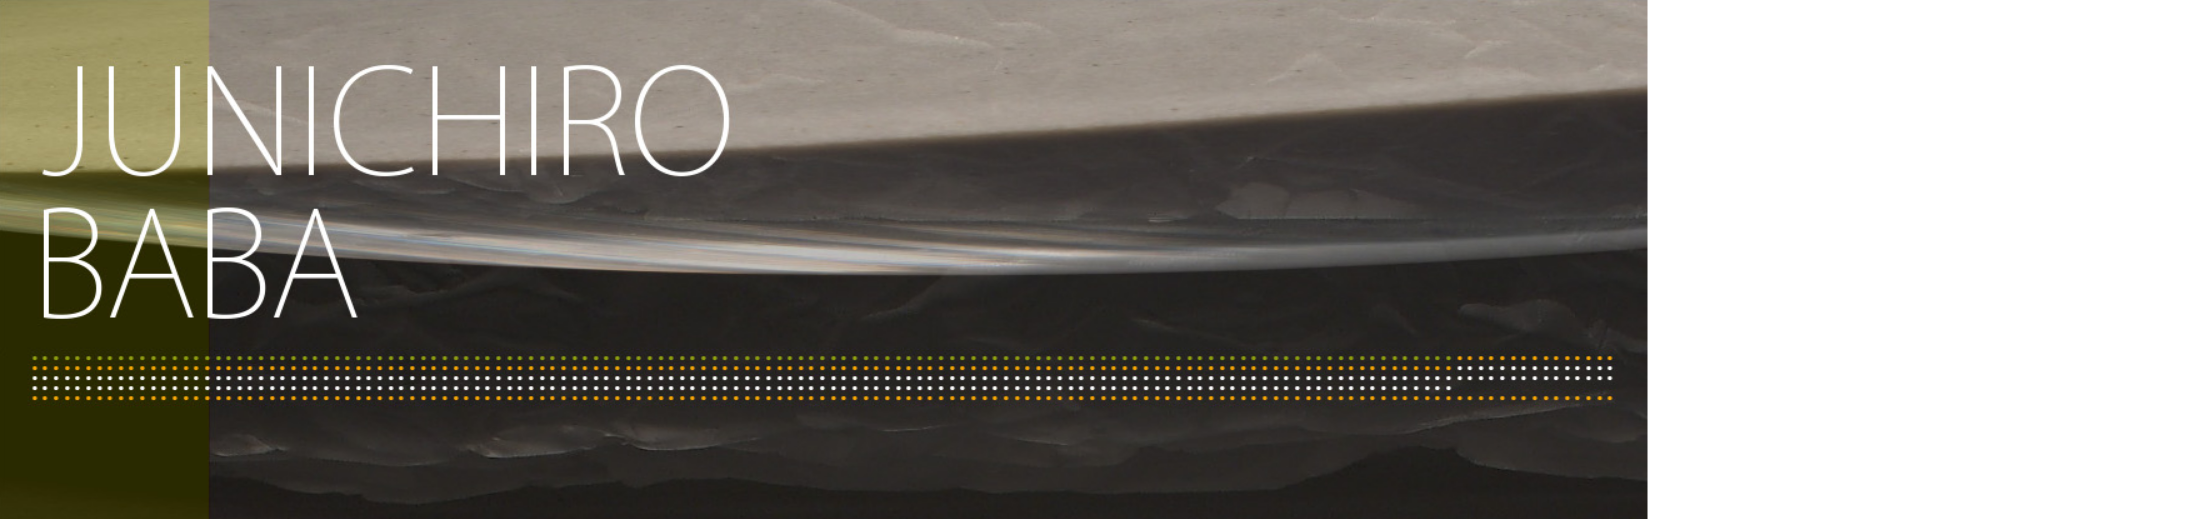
<!DOCTYPE html>
<meta charset="utf-8">
<style>body { margin: 0 } canvas { display: block }</style>
<canvas id="canvas" width="2191" height="519"></canvas>
<script type="module">
  const canvas = document.getElementById("canvas");
  const ctx = canvas.getContext("2d");
  ctx.miterLimit = 4;
  ctx.fontKerning = "normal";
  async function loadImage(src) {
    const img = new Image();
    img.src = src;
    await img.decode();
    return img;
  }

  ctx.fillStyle = "#ffffff";
  ctx.fillRect(0, 0, 2191, 519);
  ctx.drawImage(await loadImage("img1.png"), 0, 0, 1648, 519);
</script>
